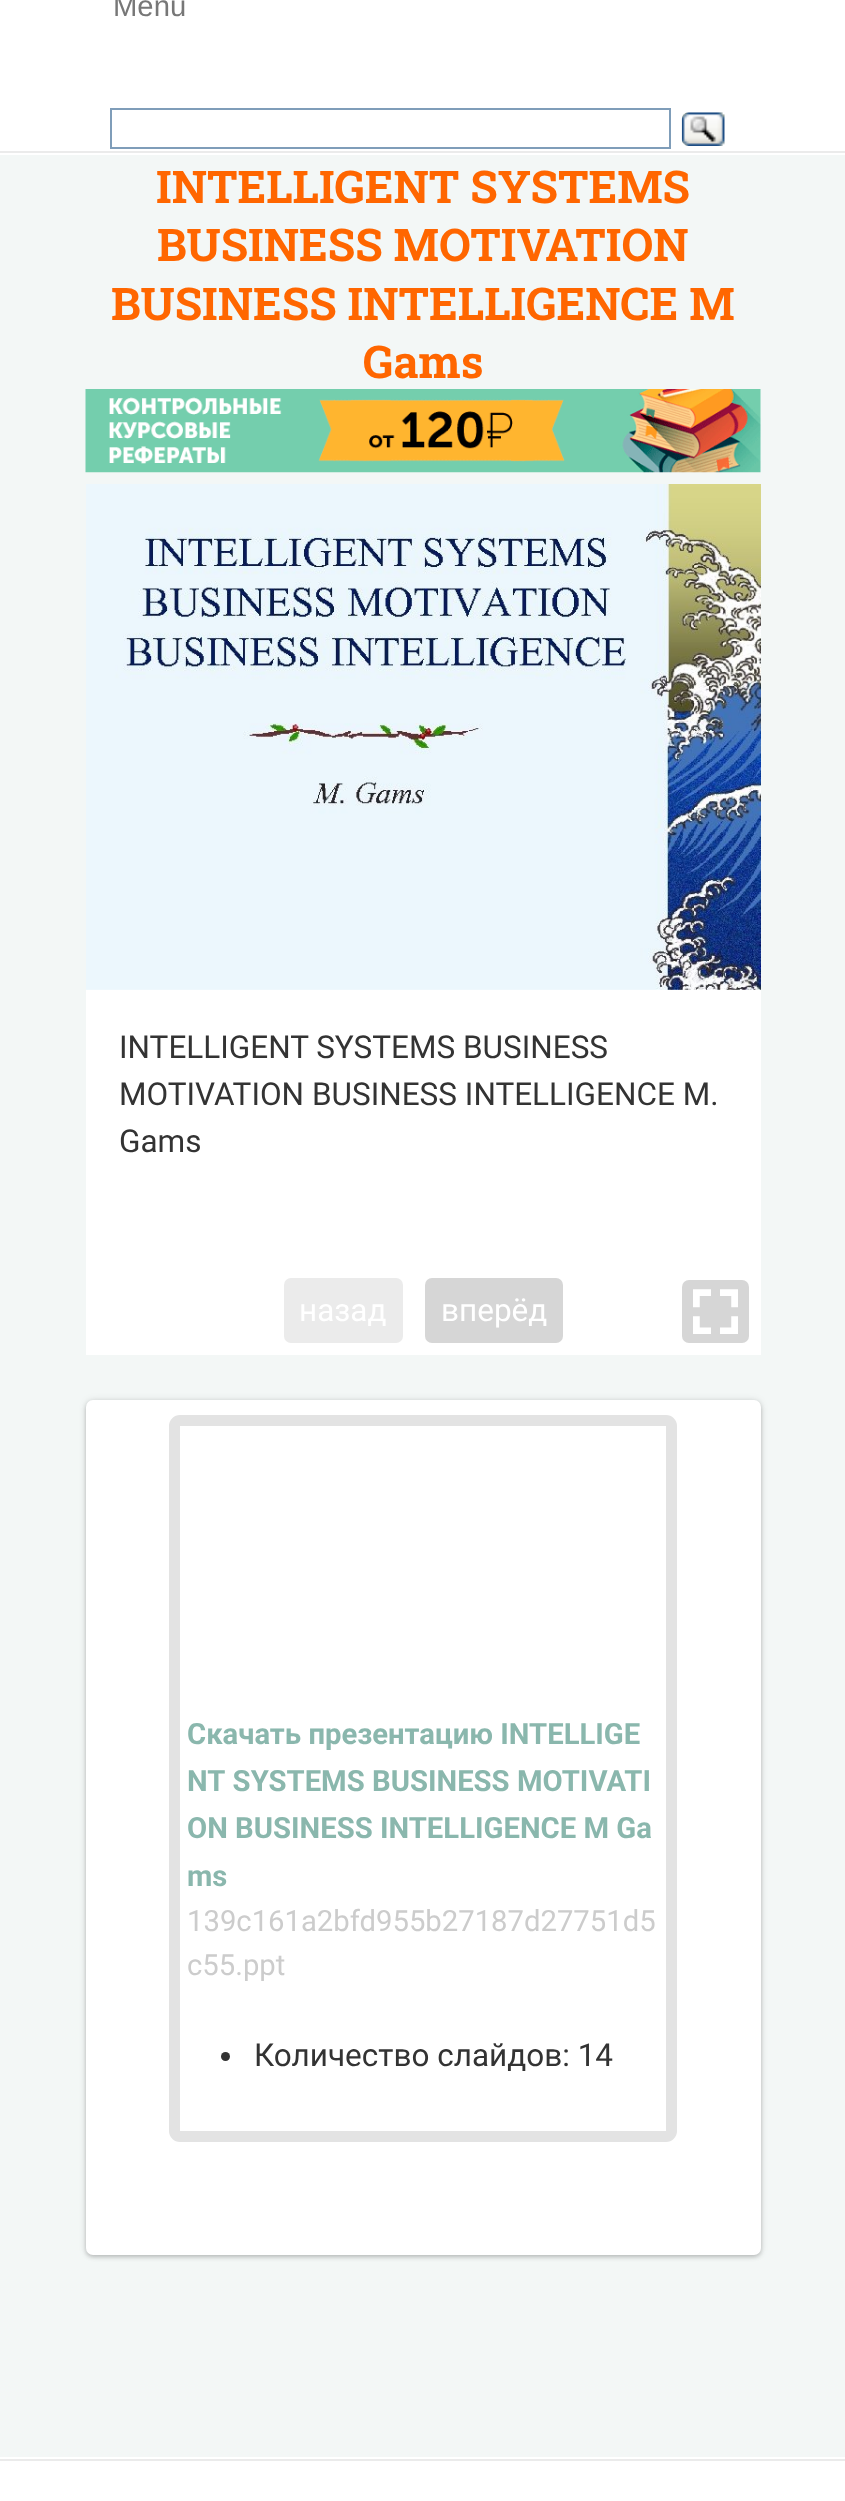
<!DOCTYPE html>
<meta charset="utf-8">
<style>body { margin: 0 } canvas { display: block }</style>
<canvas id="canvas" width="845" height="2501"></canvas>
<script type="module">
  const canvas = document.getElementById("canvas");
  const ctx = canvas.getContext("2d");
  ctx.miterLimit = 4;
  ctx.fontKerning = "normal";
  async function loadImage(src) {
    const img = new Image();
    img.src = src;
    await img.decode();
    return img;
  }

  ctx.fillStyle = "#ffffff";
  ctx.fillRect(0, 0, 845, 2501);
  ctx.fillStyle = "#ebebeb";
  ctx.fillRect(0, 151, 845, 2);
  ctx.font = "29.25px Liberation Sans";
  ctx.fillStyle = "#777777";
  ctx.fillText("Menu", 113, 16);
  ctx.strokeStyle = "#7f9db9";
  ctx.lineWidth = 2;
  ctx.strokeRect(111, 109, 559, 39);
  ctx.drawImage(await loadImage("img1.png"), 681, 112, 44, 34);
  ctx.fillStyle = "#f3f7f6";
  ctx.fillRect(0, 155, 845, 2302);
  ctx.font = "bold 45px Roboto Slab";
  ctx.fillStyle = "#ff6600";
  ctx.fillText("INTELLIGENT SYSTEMS", 156, 203);
  ctx.fillText("BUSINESS MOTIVATION", 157, 261);
  ctx.fillText("BUSINESS INTELLIGENCE M", 111, 320);
  ctx.fillText("Gams", 363, 378);
  ctx.drawImage(await loadImage("img2.png"), 85, 389, 676, 84);
  ctx.fillStyle = "#ffffff";
  ctx.fillRect(86, 989, 675, 366);
  ctx.drawImage(await loadImage("img3.png"), 86, 484, 675, 506);
  ctx.font = "31.5px Roboto";
  ctx.fillStyle = "#333333";
  ctx.fillText("INTELLIGENT SYSTEMS BUSINESS", 119, 1058);
  ctx.fillText("MOTIVATION BUSINESS INTELLIGENCE M.", 119, 1105);
  ctx.fillText("Gams", 119, 1152);
  ctx.fillStyle = "#ebebeb";
  ctx.beginPath();
  ctx.roundRect(284, 1278, 119, 65, 7);
  ctx.fill();
  ctx.fillStyle = "#ffffff";
  ctx.fillText("назад", 299, 1321);
  ctx.fillStyle = "#d6d6d6";
  ctx.beginPath();
  ctx.roundRect(425, 1278, 138, 65, 7);
  ctx.fill();
  ctx.fillStyle = "#ffffff";
  ctx.fillText("вперёд", 441, 1321);
  ctx.fillStyle = "#d6d6d6";
  ctx.beginPath();
  ctx.roundRect(682, 1280, 67, 63, 7);
  ctx.fill();
  ctx.drawImage(await loadImage("img4.png"), 693, 1289, 45, 45);
  ctx.fillStyle = "rgba(0, 0, 0, 0.1)";
  ctx.filter = "blur(3.5px)";
  ctx.beginPath();
  ctx.roundRect(86, 1400, 675, 855, 7);
  ctx.fill();
  ctx.filter = "none";
  ctx.fillStyle = "rgba(0, 0, 0, 0.2)";
  ctx.filter = "blur(2px)";
  ctx.beginPath();
  ctx.roundRect(86, 1402, 675, 855, 7);
  ctx.fill();
  ctx.filter = "none";
  ctx.fillStyle = "#ffffff";
  ctx.beginPath();
  ctx.roundRect(86, 1400, 675, 855, 7);
  ctx.fill();
  ctx.beginPath();
  ctx.roundRect(174.5, 1420.5, 497, 716, 5.5);
  ctx.strokeStyle = "#e3e3e3";
  ctx.lineWidth = 11;
  ctx.stroke();
  ctx.font = "bold 29.25px Roboto";
  ctx.fillStyle = "#8ab7ad";
  ctx.fillText("Скачать презентацию INTELLIGE", 187, 1744);
  ctx.fillText("NT SYSTEMS BUSINESS MOTIVATI", 187, 1791);
  ctx.fillText("ON BUSINESS INTELLIGENCE M Ga", 187, 1838);
  ctx.fillText("ms", 187, 1886);
  ctx.font = "29.25px Roboto";
  ctx.fillStyle = "#cccccc";
  ctx.fillText("139c161a2bfd955b27187d27751d5", 187, 1931);
  ctx.fillText("c55.ppt", 187, 1975);
  ctx.fillStyle = "#333333";
  ctx.beginPath();
  ctx.arc(225.5, 2056.5, 4.5, 0, Math.PI * 2);
  ctx.fill();
  ctx.font = "31.5px Roboto";
  ctx.fillText("Количество слайдов: 14", 254, 2066);
  ctx.fillStyle = "#ebebeb";
  ctx.fillRect(0, 2459, 845, 2);
</script>
